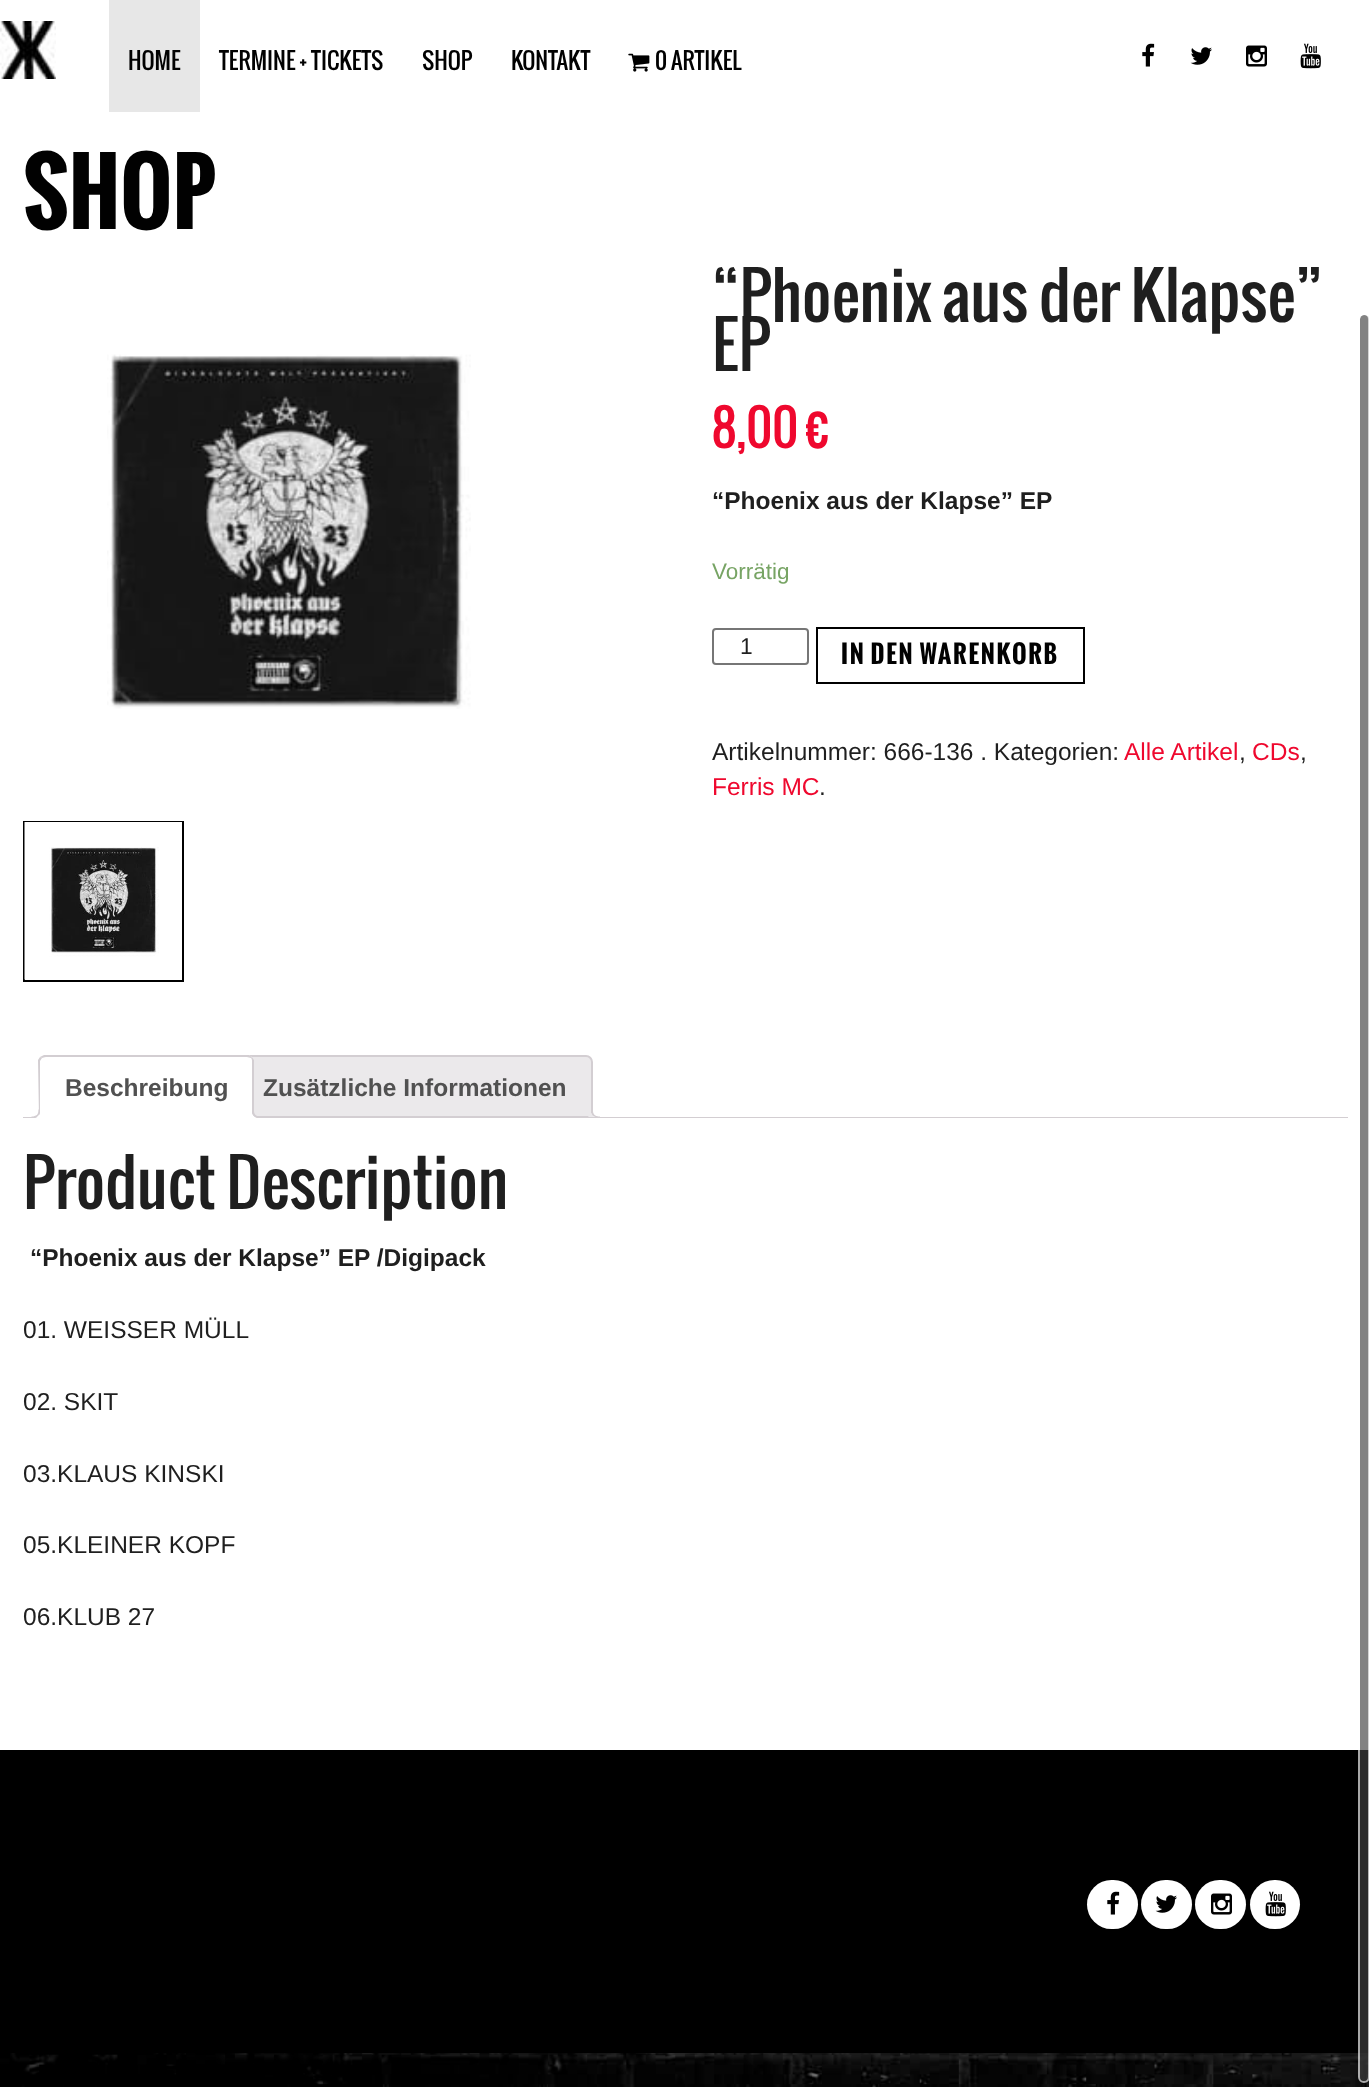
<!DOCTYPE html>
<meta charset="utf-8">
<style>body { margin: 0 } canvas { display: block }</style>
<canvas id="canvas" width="1369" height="2087"></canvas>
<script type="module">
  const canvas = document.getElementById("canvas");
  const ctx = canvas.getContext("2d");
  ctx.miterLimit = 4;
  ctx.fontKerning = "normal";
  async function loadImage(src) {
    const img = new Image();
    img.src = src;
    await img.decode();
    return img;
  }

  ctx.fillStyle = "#ffffff";
  ctx.fillRect(0, 0, 1369, 2087);
  ctx.drawImage(await loadImage("img1.png"), 0, 2053, 1369, 34);
  ctx.drawImage(await loadImage("img2.png"), 0, 21, 56, 58);
  ctx.fillStyle = "#e7e7e7";
  ctx.fillRect(109, 0, 91, 112);
  ctx.font = "22.75px Oswald";
  ctx.fillStyle = "#010101";
  ctx.fillText("HOME", 128, 70);
  ctx.fillText("TERMINE + TICKETS", 219, 70);
  ctx.fillText("SHOP", 422, 70);
  ctx.fillText("KONTAKT", 511, 70);
  ctx.drawImage(await loadImage("img3.png"), 628, 53, 22, 19);
  ctx.fillText("0 ARTIKEL", 655, 70);
  ctx.drawImage(await loadImage("img4.png"), 1142, 43, 13, 24);
  ctx.drawImage(await loadImage("img5.png"), 1190, 47, 22, 18);
  ctx.drawImage(await loadImage("img6.png"), 1246, 45, 21, 22);
  ctx.drawImage(await loadImage("img7.png"), 1300, 43, 21, 26);
  ctx.font = "bold 87.5px Oswald";
  ctx.fillText("SHOP", 23, 229);
  ctx.drawImage(await loadImage("img8.png"), 107, 354, 364, 355);
  ctx.strokeStyle = "#000000";
  ctx.lineWidth = 2;
  ctx.strokeRect(24, 822, 159, 159);
  ctx.drawImage(await loadImage("img9.png"), 24, 822, 158, 158);
  ctx.font = "63px Oswald";
  ctx.fillStyle = "#1f1f1f";
  ctx.fillText("“Phoenix aus der Klapse”", 712, 322);
  ctx.fillText("EP", 712, 371);
  ctx.font = "49px Oswald";
  ctx.fillStyle = "#ef082e";
  ctx.fillText("8,00", 712, 448);
  ctx.fillText("€", 806, 448);
  ctx.font = "bold 24.5px Liberation Sans";
  ctx.fillStyle = "#1f1f1f";
  ctx.fillText("“Phoenix aus der Klapse” EP", 712, 509);
  ctx.font = "22.5px Liberation Sans";
  ctx.fillStyle = "#77a464";
  ctx.fillText("Vorrätig", 712, 579);
  ctx.beginPath();
  ctx.roundRect(713, 629, 95, 35, 3);
  ctx.strokeStyle = "#767676";
  ctx.stroke();
  ctx.font = "22.75px Liberation Sans";
  ctx.fillStyle = "#1f1f1f";
  ctx.fillText("1", 740, 654);
  ctx.strokeStyle = "#000000";
  ctx.strokeRect(817, 628, 267, 55);
  ctx.letterSpacing = "1.75px";
  ctx.font = "bold 24.5px Oswald";
  ctx.fillStyle = "#010101";
  ctx.fillText("IN DEN WARENKORB", 841, 664);
  ctx.letterSpacing = "0px";
  ctx.font = "24.5px Liberation Sans";
  ctx.fillStyle = "#1f1f1f";
  ctx.fillText("Artikelnummer: 666-136 . Kategorien:", 712, 760);
  ctx.fillStyle = "#ef082e";
  ctx.fillText("Alle Artikel", 1124, 760);
  ctx.fillStyle = "#1f1f1f";
  ctx.fillText(",", 1239, 760);
  ctx.fillStyle = "#ef082e";
  ctx.fillText("CDs", 1252, 760);
  ctx.fillStyle = "#1f1f1f";
  ctx.fillText(",", 1300, 760);
  ctx.fillStyle = "#ef082e";
  ctx.fillText("Ferris MC", 712, 795);
  ctx.fillStyle = "#1f1f1f";
  ctx.fillText(".", 819, 795);
  ctx.fillStyle = "#ebe9eb";
  ctx.beginPath();
  ctx.roundRect(237, 1056, 355, 61, [6, 6, 0, 0]);
  ctx.fill();
  ctx.strokeStyle = "#d3ced2";
  ctx.stroke();
  ctx.save();
  ctx.beginPath();
  ctx.rect(23, 1055, 1325, 63);
  ctx.clip();
  ctx.beginPath();
  ctx.moveTo(588, 1113);
  ctx.bezierCurveTo(588, 1119.5, 590.5, 1122, 597, 1122);
  ctx.lineTo(597, 1118);
  ctx.bezierCurveTo(594.5, 1117.5, 592.5, 1115.5, 591.5, 1113);
  ctx.closePath();
  ctx.fill();
  ctx.restore();
  ctx.fillStyle = "#d3ced2";
  ctx.beginPath();
  ctx.moveTo(591.5, 1109.5);
  ctx.lineTo(600, 1109.5);
  ctx.lineTo(600, 1118);
  ctx.bezierCurveTo(596, 1118, 591.5, 1116.5, 591.5, 1111);
  ctx.closePath();
  ctx.moveTo(593, 1109.5);
  ctx.lineTo(600, 1109.5);
  ctx.lineTo(600, 1116.5);
  ctx.bezierCurveTo(597, 1116.5, 593, 1115.5, 593, 1111);
  ctx.closePath();
  ctx.fill("evenodd");
  ctx.fillRect(23, 1117, 1325, 1);
  ctx.fillStyle = "#ffffff";
  ctx.beginPath();
  ctx.roundRect(39, 1055, 215, 63, [7, 7, 0, 0]);
  ctx.fill();
  ctx.fillStyle = "#d3ced2";
  ctx.beginPath();
  ctx.moveTo(46, 1057);
  ctx.bezierCurveTo(44, 1057, 43, 1058, 42, 1058);
  ctx.lineTo(40, 1057);
  ctx.lineTo(44, 1055);
  ctx.lineTo(249, 1055);
  ctx.lineTo(252, 1057);
  ctx.lineTo(251, 1058);
  ctx.bezierCurveTo(250, 1058, 248, 1057, 247, 1057);
  ctx.closePath();
  ctx.fill();
  ctx.beginPath();
  ctx.moveTo(254, 1118);
  ctx.lineTo(252, 1116);
  ctx.lineTo(252, 1062);
  ctx.bezierCurveTo(252, 1060, 252, 1059, 251, 1058);
  ctx.lineTo(252, 1057);
  ctx.lineTo(254, 1060);
  ctx.closePath();
  ctx.fill();
  ctx.fillStyle = "#ffffff";
  ctx.beginPath();
  ctx.moveTo(254, 1118);
  ctx.lineTo(39, 1118);
  ctx.lineTo(41, 1116);
  ctx.lineTo(252, 1116);
  ctx.closePath();
  ctx.fill();
  ctx.fillStyle = "#d3ced2";
  ctx.beginPath();
  ctx.moveTo(38, 1060);
  ctx.lineTo(40, 1057);
  ctx.lineTo(42, 1058);
  ctx.lineTo(40, 1061);
  ctx.lineTo(40, 1116);
  ctx.lineTo(41, 1116);
  ctx.lineTo(39, 1118);
  ctx.closePath();
  ctx.fill();
  ctx.font = "bold 24.5px Liberation Sans";
  ctx.fillStyle = "#515151";
  ctx.fillText("Beschreibung", 65, 1096);
  ctx.save();
  ctx.beginPath();
  ctx.rect(23, 1055, 1325, 63);
  ctx.clip();
  ctx.fillStyle = "#ffffff";
  ctx.beginPath();
  ctx.moveTo(35, 1118);
  ctx.lineTo(35, 1122);
  ctx.bezierCurveTo(41.5, 1122, 44, 1119.5, 44, 1113);
  ctx.lineTo(40, 1113);
  ctx.bezierCurveTo(39.5, 1115.5, 37.5, 1117.5, 35, 1118);
  ctx.closePath();
  ctx.fill();
  ctx.restore();
  ctx.fillStyle = "#d3ced2";
  ctx.beginPath();
  ctx.moveTo(31.5, 1109.5);
  ctx.lineTo(40, 1109.5);
  ctx.bezierCurveTo(40, 1115.5, 37.5, 1118, 31.5, 1118);
  ctx.closePath();
  ctx.moveTo(31.5, 1109.5);
  ctx.lineTo(38.5, 1109.5);
  ctx.bezierCurveTo(38.5, 1114.5, 36.5, 1116.5, 31.5, 1116.5);
  ctx.closePath();
  ctx.fill("evenodd");
  ctx.save();
  ctx.beginPath();
  ctx.rect(23, 1055, 1325, 63);
  ctx.clip();
  ctx.fillStyle = "#ffffff";
  ctx.beginPath();
  ctx.moveTo(249, 1113);
  ctx.bezierCurveTo(249, 1118.5, 251, 1122, 257, 1122);
  ctx.lineTo(257, 1118);
  ctx.bezierCurveTo(254.5, 1117.5, 253, 1115.5, 252, 1113);
  ctx.closePath();
  ctx.fill();
  ctx.restore();
  ctx.beginPath();
  ctx.moveTo(252, 1109.5);
  ctx.lineTo(261, 1109.5);
  ctx.lineTo(261, 1118);
  ctx.bezierCurveTo(256.5, 1118, 252, 1116.5, 252, 1111);
  ctx.closePath();
  ctx.moveTo(254, 1109.5);
  ctx.lineTo(261, 1109.5);
  ctx.lineTo(261, 1116.5);
  ctx.bezierCurveTo(257.5, 1116.5, 254, 1115.5, 254, 1111);
  ctx.closePath();
  ctx.fill("evenodd");
  ctx.fillStyle = "#515151";
  ctx.fillText("Zusätzliche Informationen", 263, 1096);
  ctx.font = "63px Oswald";
  ctx.fillStyle = "#1f1f1f";
  ctx.fillText("Product Description", 23, 1209);
  ctx.font = "bold 24.5px Liberation Sans";
  ctx.fillText("“Phoenix aus der Klapse” EP /Digipack", 30, 1266);
  ctx.font = "24.5px Liberation Sans";
  ctx.fillText("01. WEISSER MÜLL", 23, 1338);
  ctx.fillText("02. SKIT", 23, 1410);
  ctx.fillText("03.KLAUS KINSKI", 23, 1482);
  ctx.fillText("05.KLEINER KOPF", 23, 1553);
  ctx.fillText("06.KLUB 27", 23, 1625);
  ctx.fillStyle = "#000000";
  ctx.fillRect(0, 1750, 1369, 303);
  ctx.fillStyle = "rgba(66, 66, 66, 0.66)";
  ctx.beginPath();
  ctx.roundRect(1360, 315, 9, 1766, 4.5);
  ctx.fill();
  ctx.beginPath();
  ctx.roundRect(1359, 314, 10, 1768, 5);
  ctx.strokeStyle = "rgba(255, 255, 255, 0.66)";
  ctx.stroke();
  ctx.fillStyle = "#ffffff";
  ctx.beginPath();
  ctx.roundRect(1087, 1880, 51, 49, 24.5);
  ctx.fill();
  ctx.drawImage(await loadImage("img4.png"), 1107, 1891, 13, 24);
  ctx.beginPath();
  ctx.roundRect(1141, 1880, 51, 49, 24.5);
  ctx.fill();
  ctx.drawImage(await loadImage("img5.png"), 1155, 1895, 22, 18);
  ctx.beginPath();
  ctx.roundRect(1195, 1880, 51, 49, 24.5);
  ctx.fill();
  ctx.drawImage(await loadImage("img6.png"), 1211, 1893, 21, 22);
  ctx.beginPath();
  ctx.roundRect(1250, 1880, 50, 49, 24.5);
  ctx.fill();
  ctx.drawImage(await loadImage("img7.png"), 1265, 1891, 21, 26);
</script>
